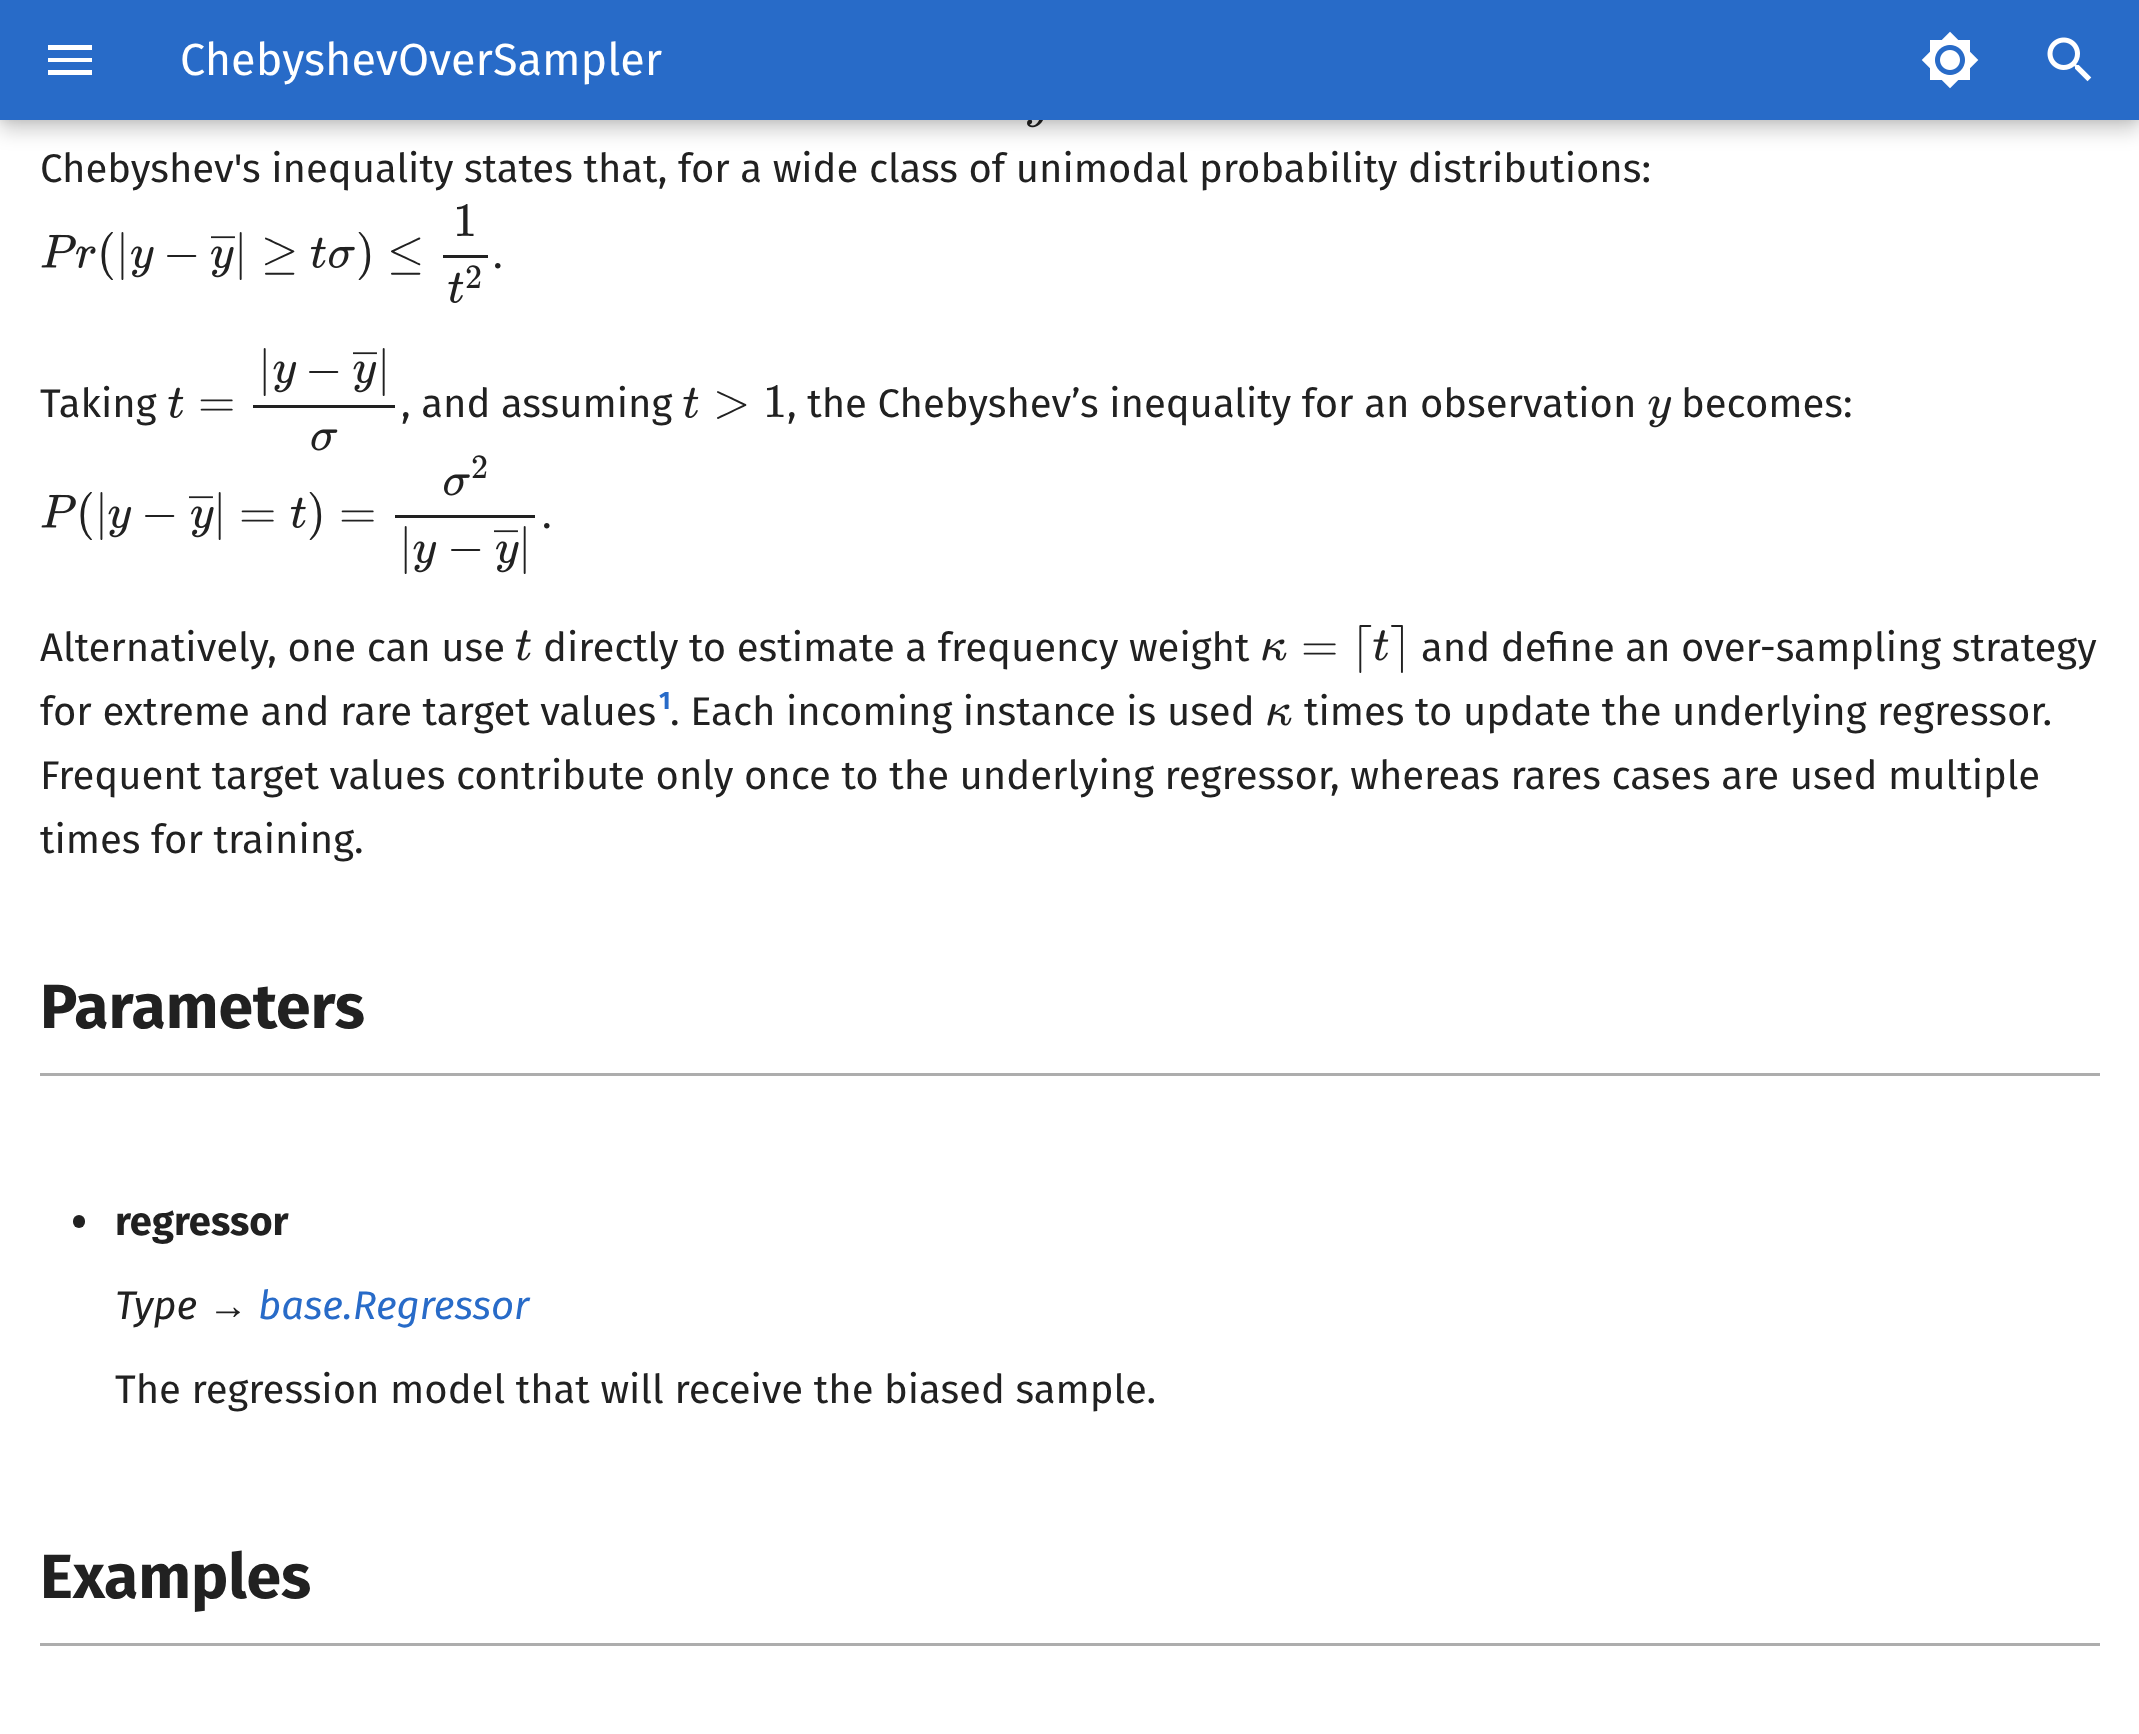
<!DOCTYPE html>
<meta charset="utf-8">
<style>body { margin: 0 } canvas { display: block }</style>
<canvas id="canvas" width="2139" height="1734"></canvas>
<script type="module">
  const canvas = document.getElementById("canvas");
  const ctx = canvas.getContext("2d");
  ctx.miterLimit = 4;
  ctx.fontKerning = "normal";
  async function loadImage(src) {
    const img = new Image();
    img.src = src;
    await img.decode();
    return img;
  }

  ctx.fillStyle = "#ffffff";
  ctx.fillRect(0, 0, 2139, 1734);
  ctx.drawImage(await loadImage("img3.png"), 1027, 120, 16, 8);
  ctx.fillStyle = "rgba(0, 0, 0, 0.2)";
  ctx.filter = "blur(10px)";
  ctx.beginPath();
  ctx.rect(0, 10, 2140, 120);
  ctx.fill();
  ctx.filter = "none";
  ctx.fillStyle = "rgba(0, 0, 0, 0.1)";
  ctx.filter = "blur(5px)";
  ctx.beginPath();
  ctx.rect(0, 0, 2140, 120);
  ctx.fill();
  ctx.filter = "none";
  ctx.fillStyle = "#286bc8";
  ctx.fillRect(0, 0, 2139, 120);
  ctx.fillStyle = "#ffffff";
  ctx.beginPath();
  ctx.moveTo(48, 45);
  ctx.lineTo(92, 45);
  ctx.lineTo(92, 50);
  ctx.lineTo(48, 50);
  ctx.closePath();
  ctx.moveTo(48, 58);
  ctx.lineTo(92, 58);
  ctx.lineTo(92, 62);
  ctx.lineTo(48, 62);
  ctx.closePath();
  ctx.moveTo(48, 70);
  ctx.lineTo(92, 70);
  ctx.lineTo(92, 75);
  ctx.lineTo(48, 75);
  ctx.closePath();
  ctx.fill();
  ctx.font = "45px Fira Sans";
  ctx.fillText("ChebyshevOverSampler", 180, 75);
  ctx.drawImage(await loadImage("img1.png"), 1921, 31, 58, 58);
  ctx.drawImage(await loadImage("img2.png"), 2047, 37, 45, 45);
  ctx.font = "40px Fira Sans";
  ctx.fillStyle = "#212121";
  ctx.fillText("Chebyshev's inequality states that, for a wide class of unimodal probability distributions:", 40, 182);
  ctx.drawImage(await loadImage("img4.png"), 41, 234, 35, 34);
  ctx.drawImage(await loadImage("img5.png"), 76, 246, 20, 22);
  ctx.font = "48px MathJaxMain";
  ctx.fillText("(|", 97, 268);
  ctx.drawImage(await loadImage("img6.png"), 131, 246, 23, 32);
  ctx.fillText("−", 163, 268);
  ctx.fillText("–", 211, 250);
  ctx.drawImage(await loadImage("img6.png"), 211, 246, 23, 32);
  ctx.fillText("|", 234, 268);
  ctx.fillText("≥", 261, 268);
  ctx.drawImage(await loadImage("img7.png"), 310, 237, 16, 31);
  ctx.drawImage(await loadImage("img8.png"), 329, 246, 26, 22);
  ctx.fillText(")", 356, 268);
  ctx.fillText("≤", 387, 268);
  ctx.fillText("1", 453, 236);
  ctx.fillRect(443, 255, 45, 3);
  ctx.drawImage(await loadImage("img9.png"), 448, 272, 16, 31);
  ctx.font = "34px MathJaxMain";
  ctx.fillText("2", 465, 288);
  ctx.font = "40px Fira Sans";
  ctx.fillText(".", 493, 268);
  ctx.fillText("Taking", 40, 417);
  ctx.font = "48px MathJaxMain";
  ctx.fillText("|", 258, 384);
  ctx.fillText("–", 353, 366);
  ctx.drawImage(await loadImage("img10.png"), 353, 361, 24, 32);
  ctx.fillText("|", 377, 384);
  ctx.drawImage(await loadImage("img10.png"), 273, 361, 24, 32);
  ctx.fillText("−", 305, 384);
  ctx.fillRect(253, 405, 142, 3);
  ctx.drawImage(await loadImage("img11.png"), 311, 429, 27, 22);
  ctx.drawImage(await loadImage("img9.png"), 168, 387, 16, 31);
  ctx.fillText("=", 198, 417);
  ctx.font = "40px Fira Sans";
  ctx.fillText(", and assuming", 401, 417);
  ctx.drawImage(await loadImage("img9.png"), 683, 387, 16, 31);
  ctx.font = "48px MathJaxMain";
  ctx.fillText(">", 713, 417);
  ctx.fillText("1", 763, 417);
  ctx.font = "40px Fira Sans";
  ctx.fillText(", the Chebyshev’s inequality for an observation", 787, 417);
  ctx.drawImage(await loadImage("img10.png"), 1648, 396, 24, 32);
  ctx.fillText("becomes:", 1681, 417);
  ctx.drawImage(await loadImage("img4.png"), 41, 494, 35, 34);
  ctx.font = "48px MathJaxMain";
  ctx.fillText("(|", 76, 528);
  ctx.drawImage(await loadImage("img10.png"), 108, 506, 24, 32);
  ctx.fillText("−", 141, 528);
  ctx.fillText("–", 189, 510);
  ctx.drawImage(await loadImage("img6.png"), 191, 506, 23, 32);
  ctx.fillText("|", 213, 528);
  ctx.fillText("=", 239, 528);
  ctx.drawImage(await loadImage("img7.png"), 290, 497, 16, 31);
  ctx.fillText(")", 307, 528);
  ctx.fillText("=", 339, 528);
  ctx.font = "34px MathJaxMain";
  ctx.fillText("2", 471, 478);
  ctx.drawImage(await loadImage("img12.png"), 444, 474, 26, 22);
  ctx.fillRect(395, 515, 140, 3);
  ctx.font = "48px MathJaxMain";
  ctx.fillText("|", 399, 562);
  ctx.fillText("–", 494, 544);
  ctx.drawImage(await loadImage("img6.png"), 496, 541, 23, 32);
  ctx.fillText("|", 518, 562);
  ctx.drawImage(await loadImage("img10.png"), 413, 541, 24, 32);
  ctx.fillText("−", 447, 562);
  ctx.font = "40px Fira Sans";
  ctx.fillText(".", 542, 528);
  ctx.fillText("Alternatively, one can use", 40, 661);
  ctx.drawImage(await loadImage("img13.png"), 516, 630, 15, 31);
  ctx.fillText("directly to estimate a frequency weight", 543, 661);
  ctx.drawImage(await loadImage("img14.png"), 1262, 638, 25, 23);
  ctx.font = "48px MathJaxMain";
  ctx.fillText("=", 1301, 661);
  ctx.fillText("⌈", 1351, 661);
  ctx.drawImage(await loadImage("img15.png"), 1373, 630, 16, 31);
  ctx.fillText("⌉", 1390, 661);
  ctx.font = "40px Fira Sans";
  ctx.fillText("and define an over-sampling strategy", 1421, 661);
  ctx.fillText("for extreme and rare target values", 40, 725);
  ctx.font = "bold 25px Fira Sans";
  ctx.fillStyle = "#286bc8";
  ctx.fillText("1", 659, 709);
  ctx.font = "40px Fira Sans";
  ctx.fillStyle = "#212121";
  ctx.fillText(". Each incoming instance is used", 670, 725);
  ctx.drawImage(await loadImage("img14.png"), 1267, 703, 25, 23);
  ctx.fillText("times to update the underlying regressor.", 1304, 725);
  ctx.fillText("Frequent target values contribute only once to the underlying regressor, whereas rares cases are used multiple", 40, 789);
  ctx.fillText("times for training.", 40, 853);
  ctx.fillStyle = "#adadad";
  ctx.fillRect(40, 1073, 2060, 3);
  ctx.font = "bold 62.5px Fira Sans";
  ctx.fillStyle = "#212121";
  ctx.fillText("Parameters", 40, 1028);
  ctx.beginPath();
  ctx.roundRect(73, 1215, 12, 13, 6);
  ctx.fill();
  ctx.font = "bold 40px Fira Sans";
  ctx.fillText("regressor", 115, 1235);
  ctx.font = "italic 40px Fira Sans";
  ctx.fillText("Type", 115, 1319);
  ctx.font = "40px Liberation Sans";
  ctx.fillText("→", 208, 1319);
  ctx.font = "italic 40px Fira Sans";
  ctx.fillStyle = "#286bc8";
  ctx.fillText("base.Regressor", 258, 1319);
  ctx.font = "40px Fira Sans";
  ctx.fillStyle = "#212121";
  ctx.fillText("The regression model that will receive the biased sample.", 115, 1403);
  ctx.fillStyle = "#adadad";
  ctx.fillRect(40, 1643, 2060, 3);
  ctx.font = "bold 62.5px Fira Sans";
  ctx.fillStyle = "#212121";
  ctx.fillText("Examples", 40, 1598);
</script>
